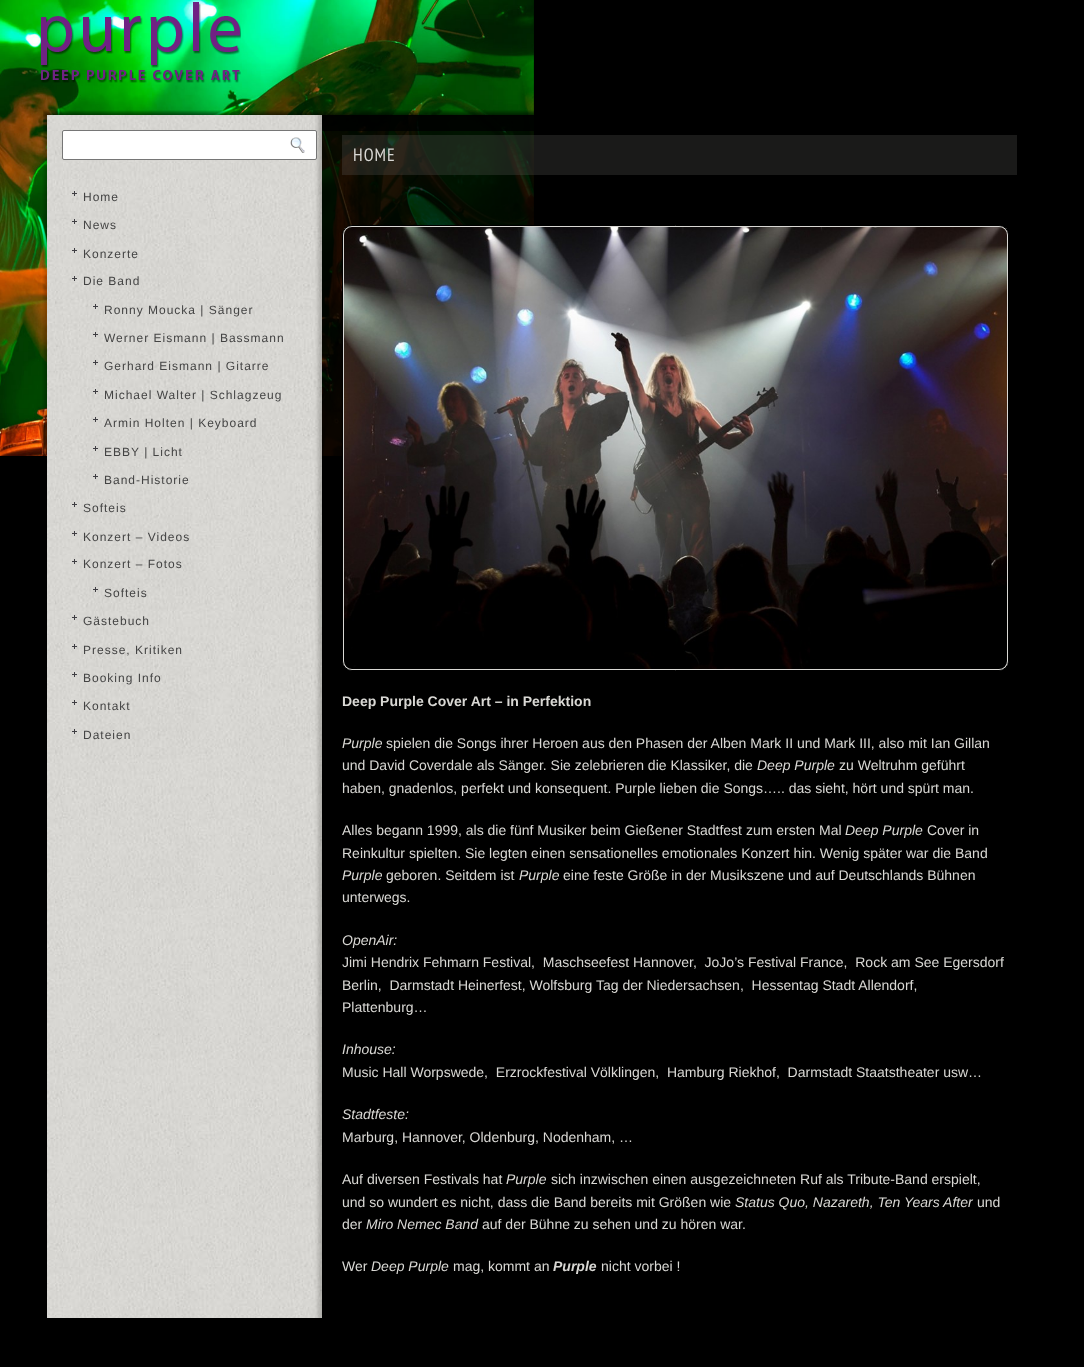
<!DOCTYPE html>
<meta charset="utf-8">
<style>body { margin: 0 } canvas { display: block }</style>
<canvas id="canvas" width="1084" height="1367"></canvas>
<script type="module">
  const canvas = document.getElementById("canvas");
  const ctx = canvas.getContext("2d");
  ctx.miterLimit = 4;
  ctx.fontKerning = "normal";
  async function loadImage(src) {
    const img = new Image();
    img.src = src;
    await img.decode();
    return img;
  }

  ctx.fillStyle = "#000000";
  ctx.fillRect(0, 0, 1084, 1367);
  ctx.drawImage(await loadImage("img1.png"), 0, 0, 534, 456);
  ctx.drawImage(await loadImage("img2.png"), 41, 2, 200, 81);
  ctx.drawImage(await loadImage("img3.png"), 43, 110, 491, 21);
  ctx.drawImage(await loadImage("img4.png"), 43, 110, 491, 21);
  ctx.drawImage(await loadImage("img5.png"), 42, 131, 492, 325);
  ctx.drawImage(await loadImage("img6.png"), 47, 115, 275, 1203);
  ctx.fillStyle = "#ffffff";
  ctx.beginPath();
  ctx.roundRect(62.5, 130.5, 254, 29, 1.5);
  ctx.fill();
  ctx.strokeStyle = "#767676";
  ctx.stroke();
  ctx.drawImage(await loadImage("img7.png"), 290, 137, 15, 16);
  ctx.drawImage(await loadImage("img8.png"), 72, 191, 5, 5);
  ctx.letterSpacing = "1px";
  ctx.font = "12px Liberation Sans";
  ctx.fillStyle = "#444444";
  ctx.fillText("Home", 83, 201);
  ctx.drawImage(await loadImage("img9.png"), 72, 219, 5, 5);
  ctx.fillText("News", 83, 229);
  ctx.drawImage(await loadImage("img10.png"), 72, 248, 5, 5);
  ctx.fillText("Konzerte", 83, 258);
  ctx.drawImage(await loadImage("img11.png"), 72, 276, 5, 5);
  ctx.fillText("Die Band", 83, 285);
  ctx.drawImage(await loadImage("img12.png"), 93, 304, 5, 5);
  ctx.fillText("Ronny Moucka | Sänger", 104, 314);
  ctx.drawImage(await loadImage("img13.png"), 93, 332, 5, 5);
  ctx.fillText("Werner Eismann | Bassmann", 104, 342);
  ctx.drawImage(await loadImage("img14.png"), 93, 360, 5, 5);
  ctx.fillText("Gerhard Eismann | Gitarre", 104, 370);
  ctx.drawImage(await loadImage("img15.png"), 93, 389, 5, 5);
  ctx.fillText("Michael Walter | Schlagzeug", 104, 399);
  ctx.drawImage(await loadImage("img16.png"), 93, 417, 5, 5);
  ctx.fillText("Armin Holten | Keyboard", 104, 427);
  ctx.drawImage(await loadImage("img17.png"), 93, 446, 5, 5);
  ctx.fillText("EBBY | Licht", 104, 456);
  ctx.drawImage(await loadImage("img18.png"), 93, 474, 5, 5);
  ctx.fillText("Band-Historie", 104, 484);
  ctx.drawImage(await loadImage("img19.png"), 72, 502, 5, 5);
  ctx.fillText("Softeis", 83, 512);
  ctx.drawImage(await loadImage("img20.png"), 72, 531, 5, 5);
  ctx.fillText("Konzert – Videos", 83, 541);
  ctx.drawImage(await loadImage("img21.png"), 72, 559, 5, 5);
  ctx.fillText("Konzert – Fotos", 83, 568);
  ctx.drawImage(await loadImage("img22.png"), 93, 587, 5, 5);
  ctx.fillText("Softeis", 104, 597);
  ctx.drawImage(await loadImage("img23.png"), 72, 615, 5, 5);
  ctx.fillText("Gästebuch", 83, 625);
  ctx.drawImage(await loadImage("img24.png"), 72, 644, 5, 5);
  ctx.fillText("Presse, Kritiken", 83, 654);
  ctx.drawImage(await loadImage("img25.png"), 72, 672, 5, 5);
  ctx.fillText("Booking Info", 83, 682);
  ctx.drawImage(await loadImage("img26.png"), 72, 700, 5, 5);
  ctx.fillText("Kontakt", 83, 710);
  ctx.drawImage(await loadImage("img27.png"), 72, 729, 5, 5);
  ctx.fillText("Dateien", 83, 739);
  ctx.fillStyle = "rgba(87, 87, 84, 0.3)";
  ctx.fillRect(342, 135, 675, 40);
  ctx.font = "18px PT Sans Narrow";
  ctx.fillStyle = "#d9d8d4";
  ctx.fillText("HOME", 353, 161);
  ctx.beginPath();
  ctx.roundRect(342.5, 225.5, 666, 445, 9.5);
  ctx.fill();
  ctx.strokeStyle = "#000000";
  ctx.stroke();
  ctx.drawImage(await loadImage("img28.png"), 344, 227, 663, 442);
  ctx.letterSpacing = "0px";
  ctx.font = "bold 14px Liberation Sans";
  ctx.fillText("Deep Purple Cover Art – in Perfektion", 342, 706);
  ctx.font = "italic 14px Liberation Sans";
  ctx.fillText("Purple", 342, 748);
  ctx.font = "14px Liberation Sans";
  ctx.fillText("spielen die Songs ihrer Heroen aus den Phasen der Alben Mark II und Mark III, also mit Ian Gillan", 386, 748);
  ctx.fillText("und David Coverdale als Sänger. Sie zelebrieren die Klassiker, die", 342, 770);
  ctx.font = "italic 14px Liberation Sans";
  ctx.fillText("Deep Purple", 757, 770);
  ctx.font = "14px Liberation Sans";
  ctx.fillText("zu Weltruhm geführt", 839, 770);
  ctx.fillText("haben, gnadenlos, perfekt und konsequent. Purple lieben die Songs….. das sieht, hört und spürt man.", 342, 793);
  ctx.fillText("Alles begann 1999, als die fünf Musiker beim Gießener Stadtfest zum ersten Mal", 342, 835);
  ctx.font = "italic 14px Liberation Sans";
  ctx.fillText("Deep Purple", 845, 835);
  ctx.font = "14px Liberation Sans";
  ctx.fillText("Cover in", 927, 835);
  ctx.fillText("Reinkultur spielten. Sie legten einen sensationelles emotionales Konzert hin. Wenig später war die Band", 342, 858);
  ctx.font = "italic 14px Liberation Sans";
  ctx.fillText("Purple", 342, 880);
  ctx.font = "14px Liberation Sans";
  ctx.fillText("geboren. Seitdem ist", 386, 880);
  ctx.font = "italic 14px Liberation Sans";
  ctx.fillText("Purple", 519, 880);
  ctx.font = "14px Liberation Sans";
  ctx.fillText("eine feste Größe in der Musikszene und auf Deutschlands Bühnen", 563, 880);
  ctx.fillText("unterwegs.", 342, 902);
  ctx.font = "italic 14px Liberation Sans";
  ctx.fillText("OpenAir:", 342, 945);
  ctx.font = "14px Liberation Sans";
  ctx.fillText("Jimi Hendrix Fehmarn Festival,  Maschseefest Hannover,  JoJo’s Festival France,  Rock am See Egersdorf", 342, 967);
  ctx.fillText("Berlin,  Darmstadt Heinerfest, Wolfsburg Tag der Niedersachsen,  Hessentag Stadt Allendorf,", 342, 990);
  ctx.fillText("Plattenburg…", 342, 1012);
  ctx.font = "italic 14px Liberation Sans";
  ctx.fillText("Inhouse:", 342, 1054);
  ctx.font = "14px Liberation Sans";
  ctx.fillText("Music Hall Worpswede,  Erzrockfestival Völklingen,  Hamburg Riekhof,  Darmstadt Staatstheater usw…", 342, 1077);
  ctx.font = "italic 14px Liberation Sans";
  ctx.fillText("Stadtfeste:", 342, 1119);
  ctx.font = "14px Liberation Sans";
  ctx.fillText("Marburg, Hannover, Oldenburg, Nodenham, …", 342, 1142);
  ctx.fillText("Auf diversen Festivals hat", 342, 1184);
  ctx.font = "italic 14px Liberation Sans";
  ctx.fillText("Purple", 506, 1184);
  ctx.font = "14px Liberation Sans";
  ctx.fillText("sich inzwischen einen ausgezeichneten Ruf als Tribute-Band erspielt,", 551, 1184);
  ctx.fillText("und so wundert es nicht, dass die Band bereits mit Größen wie", 342, 1207);
  ctx.font = "italic 14px Liberation Sans";
  ctx.fillText("Status Quo, Nazareth, Ten Years After", 735, 1207);
  ctx.font = "14px Liberation Sans";
  ctx.fillText("und", 977, 1207);
  ctx.fillText("der", 342, 1229);
  ctx.font = "italic 14px Liberation Sans";
  ctx.fillText("Miro Nemec Band", 366, 1229);
  ctx.font = "14px Liberation Sans";
  ctx.fillText("auf der Bühne zu sehen und zu hören war.", 482, 1229);
  ctx.fillText("Wer", 342, 1271);
  ctx.font = "italic 14px Liberation Sans";
  ctx.fillText("Deep Purple", 371, 1271);
  ctx.font = "14px Liberation Sans";
  ctx.fillText("mag, kommt an", 453, 1271);
  ctx.font = "italic bold 14px Liberation Sans";
  ctx.fillText("Purple", 553, 1271);
  ctx.font = "14px Liberation Sans";
  ctx.fillText("nicht vorbei !", 601, 1271);
</script>
